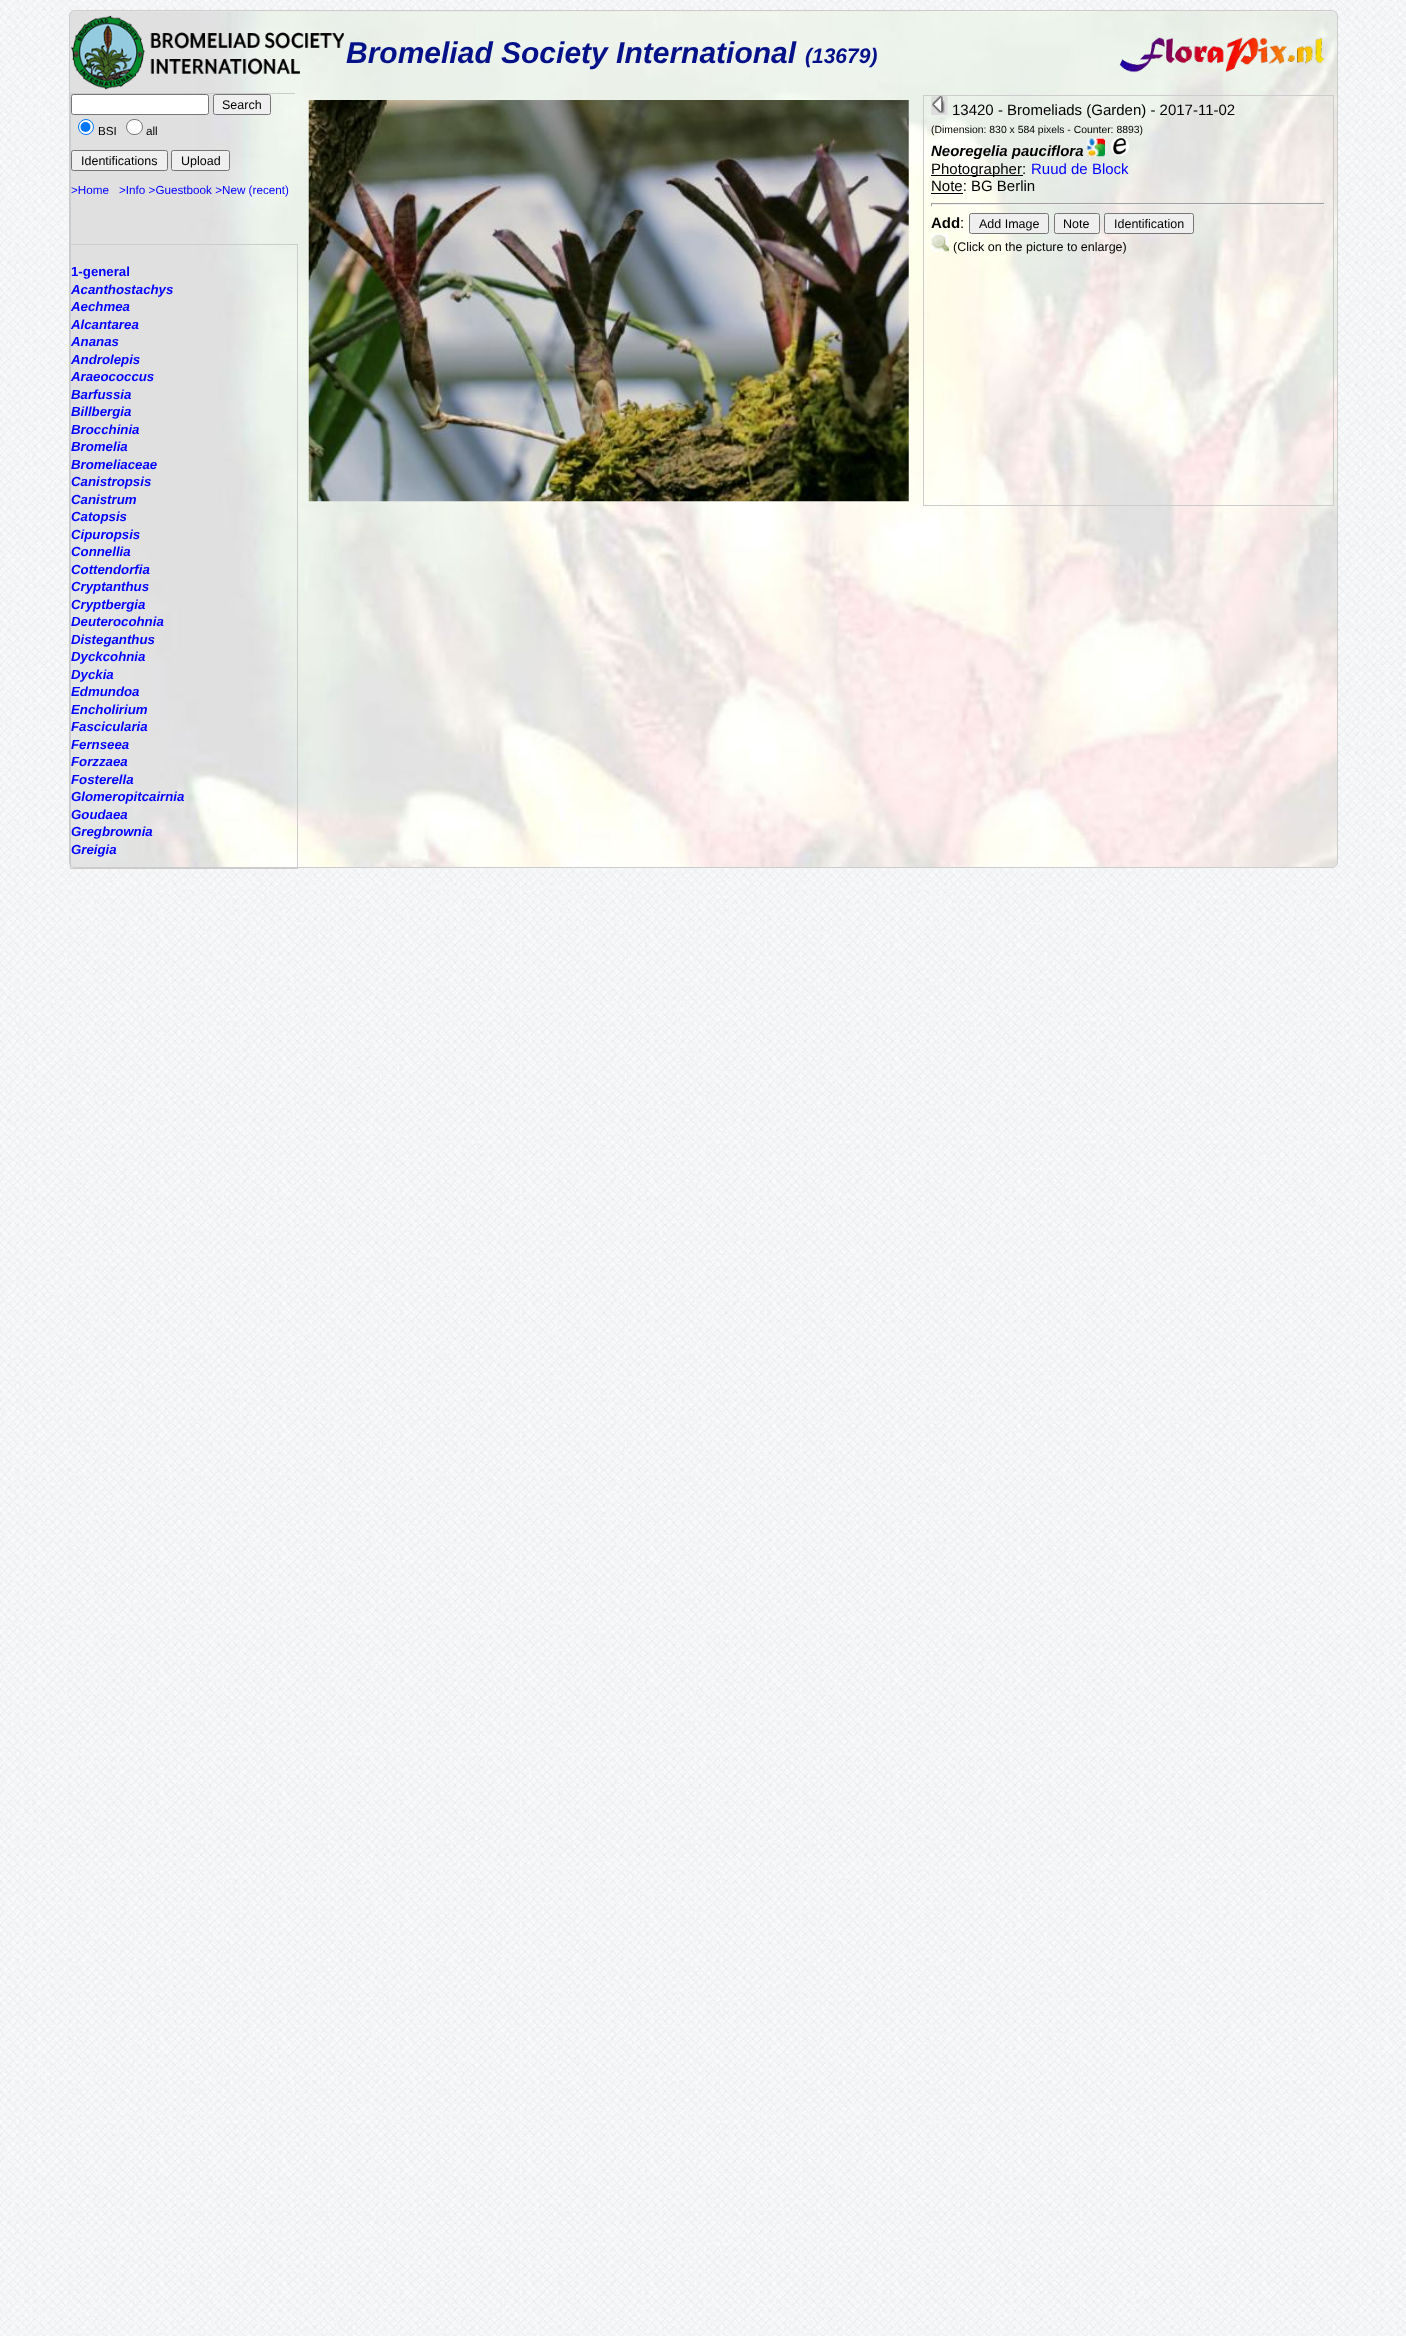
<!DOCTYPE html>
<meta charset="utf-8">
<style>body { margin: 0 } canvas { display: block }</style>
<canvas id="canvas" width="1406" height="2336"></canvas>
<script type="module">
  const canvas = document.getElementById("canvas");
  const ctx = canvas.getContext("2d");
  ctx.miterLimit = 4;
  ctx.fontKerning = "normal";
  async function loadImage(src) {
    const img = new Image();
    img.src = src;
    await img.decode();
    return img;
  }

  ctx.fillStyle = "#ffffff";
  ctx.fillRect(0, 0, 1406, 2336);
  ctx.drawImage(await loadImage("img1.png"), 0, 0, 1406, 2336);
  ctx.drawImage(await loadImage("img2.png"), 69, 10, 1269, 858);
  ctx.beginPath();
  ctx.roundRect(69.5, 10.5, 1268, 857, 5.5);
  ctx.strokeStyle = "#cccccc";
  ctx.stroke();
  ctx.drawImage(await loadImage("img3.png"), 71, 15, 273, 75);
  ctx.font = "italic bold 30px Liberation Sans";
  ctx.fillStyle = "#041188";
  ctx.fillText("Bromeliad Society International", 346, 63);
  ctx.font = "italic bold 21px Liberation Sans";
  ctx.fillText("(13679)", 805, 63);
  ctx.drawImage(await loadImage("img4.png"), 1119, 37, 206, 36);
  ctx.save();
  ctx.beginPath();
  ctx.rect(70, 93, 225, 773);
  ctx.clip();
  ctx.strokeRect(70.5, 93.5, 227, 151);
  ctx.restore();
  ctx.fillStyle = "#ffffff";
  ctx.beginPath();
  ctx.roundRect(71.5, 94.5, 137, 20, 2);
  ctx.fill();
  ctx.strokeStyle = "#767676";
  ctx.stroke();
  ctx.fillStyle = "#efefef";
  ctx.beginPath();
  ctx.roundRect(213.5, 94.5, 57, 20, 2);
  ctx.fill();
  ctx.stroke();
  ctx.font = "12.5px Liberation Sans";
  ctx.fillStyle = "#000000";
  ctx.fillText("Search", 222, 109);
  ctx.fillStyle = "#ffffff";
  ctx.beginPath();
  ctx.arc(86, 127, 7.5, 0, Math.PI * 2);
  ctx.fill();
  ctx.strokeStyle = "#0075ff";
  ctx.stroke();
  ctx.fillStyle = "#0075ff";
  ctx.beginPath();
  ctx.arc(85.5, 127, 5, 0, Math.PI * 2);
  ctx.fill();
  ctx.font = "11.7px Liberation Sans";
  ctx.fillStyle = "#000000";
  ctx.fillText("BSI", 98, 135);
  ctx.fillStyle = "#ffffff";
  ctx.beginPath();
  ctx.roundRect(126.5, 119.5, 16, 15, 7.5);
  ctx.fill();
  ctx.strokeStyle = "#767676";
  ctx.stroke();
  ctx.fillStyle = "#000000";
  ctx.fillText("all", 146, 135);
  ctx.fillStyle = "#efefef";
  ctx.beginPath();
  ctx.roundRect(71.5, 150.5, 96, 20, 2);
  ctx.fill();
  ctx.stroke();
  ctx.font = "12.5px Liberation Sans";
  ctx.fillStyle = "#000000";
  ctx.fillText("Identifications", 81, 165);
  ctx.fillStyle = "#efefef";
  ctx.beginPath();
  ctx.roundRect(171.5, 150.5, 58, 20, 2);
  ctx.fill();
  ctx.stroke();
  ctx.fillStyle = "#000000";
  ctx.fillText("Upload", 181, 165);
  ctx.font = "11.7px Liberation Sans";
  ctx.fillStyle = "#0000ff";
  ctx.fillText(">Home", 71, 194);
  ctx.fillText(">Info >Guestbook >New (recent)", 119, 194);
  ctx.strokeStyle = "#cccccc";
  ctx.strokeRect(70.5, 244.5, 227, 624);
  ctx.font = "bold 13.25px Liberation Sans";
  ctx.fillText("1-general", 71, 276);
  ctx.font = "italic bold 13.25px Liberation Sans";
  ctx.fillText("Acanthostachys", 71, 294);
  ctx.fillText("Aechmea", 71, 311);
  ctx.fillText("Alcantarea", 71, 329);
  ctx.fillText("Ananas", 71, 346);
  ctx.fillText("Androlepis", 71, 364);
  ctx.fillText("Araeococcus", 71, 381);
  ctx.fillText("Barfussia", 71, 399);
  ctx.fillText("Billbergia", 71, 416);
  ctx.fillText("Brocchinia", 71, 434);
  ctx.fillText("Bromelia", 71, 451);
  ctx.fillText("Bromeliaceae", 71, 469);
  ctx.fillText("Canistropsis", 71, 486);
  ctx.fillText("Canistrum", 71, 504);
  ctx.fillText("Catopsis", 71, 521);
  ctx.fillText("Cipuropsis", 71, 539);
  ctx.fillText("Connellia", 71, 556);
  ctx.fillText("Cottendorfia", 71, 574);
  ctx.fillText("Cryptanthus", 71, 591);
  ctx.fillText("Cryptbergia", 71, 609);
  ctx.fillText("Deuterocohnia", 71, 626);
  ctx.fillText("Disteganthus", 71, 644);
  ctx.fillText("Dyckcohnia", 71, 661);
  ctx.fillText("Dyckia", 71, 679);
  ctx.fillText("Edmundoa", 71, 696);
  ctx.fillText("Encholirium", 71, 714);
  ctx.fillText("Fascicularia", 71, 731);
  ctx.fillText("Fernseea", 71, 749);
  ctx.fillText("Forzzaea", 71, 766);
  ctx.fillText("Fosterella", 71, 784);
  ctx.fillText("Glomeropitcairnia", 71, 801);
  ctx.fillText("Goudaea", 71, 819);
  ctx.fillText("Gregbrownia", 71, 836);
  ctx.fillText("Greigia", 71, 854);
  ctx.drawImage(await loadImage("img5.png"), 308, 100, 601, 402);
  ctx.strokeRect(923.5, 95.5, 410, 410);
  ctx.drawImage(await loadImage("img6.png"), 931, 96, 17, 19);
  ctx.font = "15px Liberation Sans";
  ctx.fillStyle = "#000000";
  ctx.fillText("13420 - Bromeliads (Garden) - 2017-11-02", 952, 115);
  ctx.font = "10.4px Liberation Sans";
  ctx.fillText("(Dimension: 830 x 584 pixels - Counter: 8893)", 931, 133);
  ctx.font = "italic bold 15px Liberation Sans";
  ctx.fillText("Neoregelia pauciflora", 931, 156);
  ctx.drawImage(await loadImage("img7.png"), 1087, 138, 18, 19);
  ctx.drawImage(await loadImage("img8.png"), 1111, 137, 19, 19);
  ctx.fillRect(931, 175, 92, 1);
  ctx.font = "15px Liberation Sans";
  ctx.fillText("Photographer:", 931, 174);
  ctx.fillStyle = "#0000ff";
  ctx.fillText("Ruud de Block", 1031, 174);
  ctx.fillStyle = "#000000";
  ctx.fillText("Note: BG Berlin", 931, 191);
  ctx.fillRect(931, 193, 32, 1);
  ctx.fillStyle = "#9f9f9f";
  ctx.fillRect(931, 203, 394, 1);
  ctx.fillStyle = "#eeeeee";
  ctx.fillRect(1324, 203, 1, 3);
  ctx.fillRect(931, 204, 394, 1);
  ctx.fillStyle = "#9f9f9f";
  ctx.fillRect(931, 203, 1, 3);
  ctx.font = "bold 15px Liberation Sans";
  ctx.fillStyle = "#000000";
  ctx.fillText("Add", 931, 228);
  ctx.font = "15px Liberation Sans";
  ctx.fillText(":", 960, 228);
  ctx.fillStyle = "#efefef";
  ctx.beginPath();
  ctx.roundRect(969.5, 213.5, 79, 20, 2);
  ctx.fill();
  ctx.strokeStyle = "#767676";
  ctx.stroke();
  ctx.font = "12.5px Liberation Sans";
  ctx.fillStyle = "#000000";
  ctx.fillText("Add Image", 979, 228);
  ctx.fillStyle = "#efefef";
  ctx.beginPath();
  ctx.roundRect(1054.5, 213.5, 45, 20, 2);
  ctx.fill();
  ctx.stroke();
  ctx.fillStyle = "#000000";
  ctx.fillText("Note", 1063, 228);
  ctx.fillStyle = "#efefef";
  ctx.beginPath();
  ctx.roundRect(1104.5, 213.5, 89, 20, 2);
  ctx.fill();
  ctx.stroke();
  ctx.fillStyle = "#000000";
  ctx.fillText("Identification", 1114, 228);
  ctx.drawImage(await loadImage("img9.png"), 931, 233, 18, 19);
  ctx.fillText("(Click on the picture to enlarge)", 953, 251);
</script>
